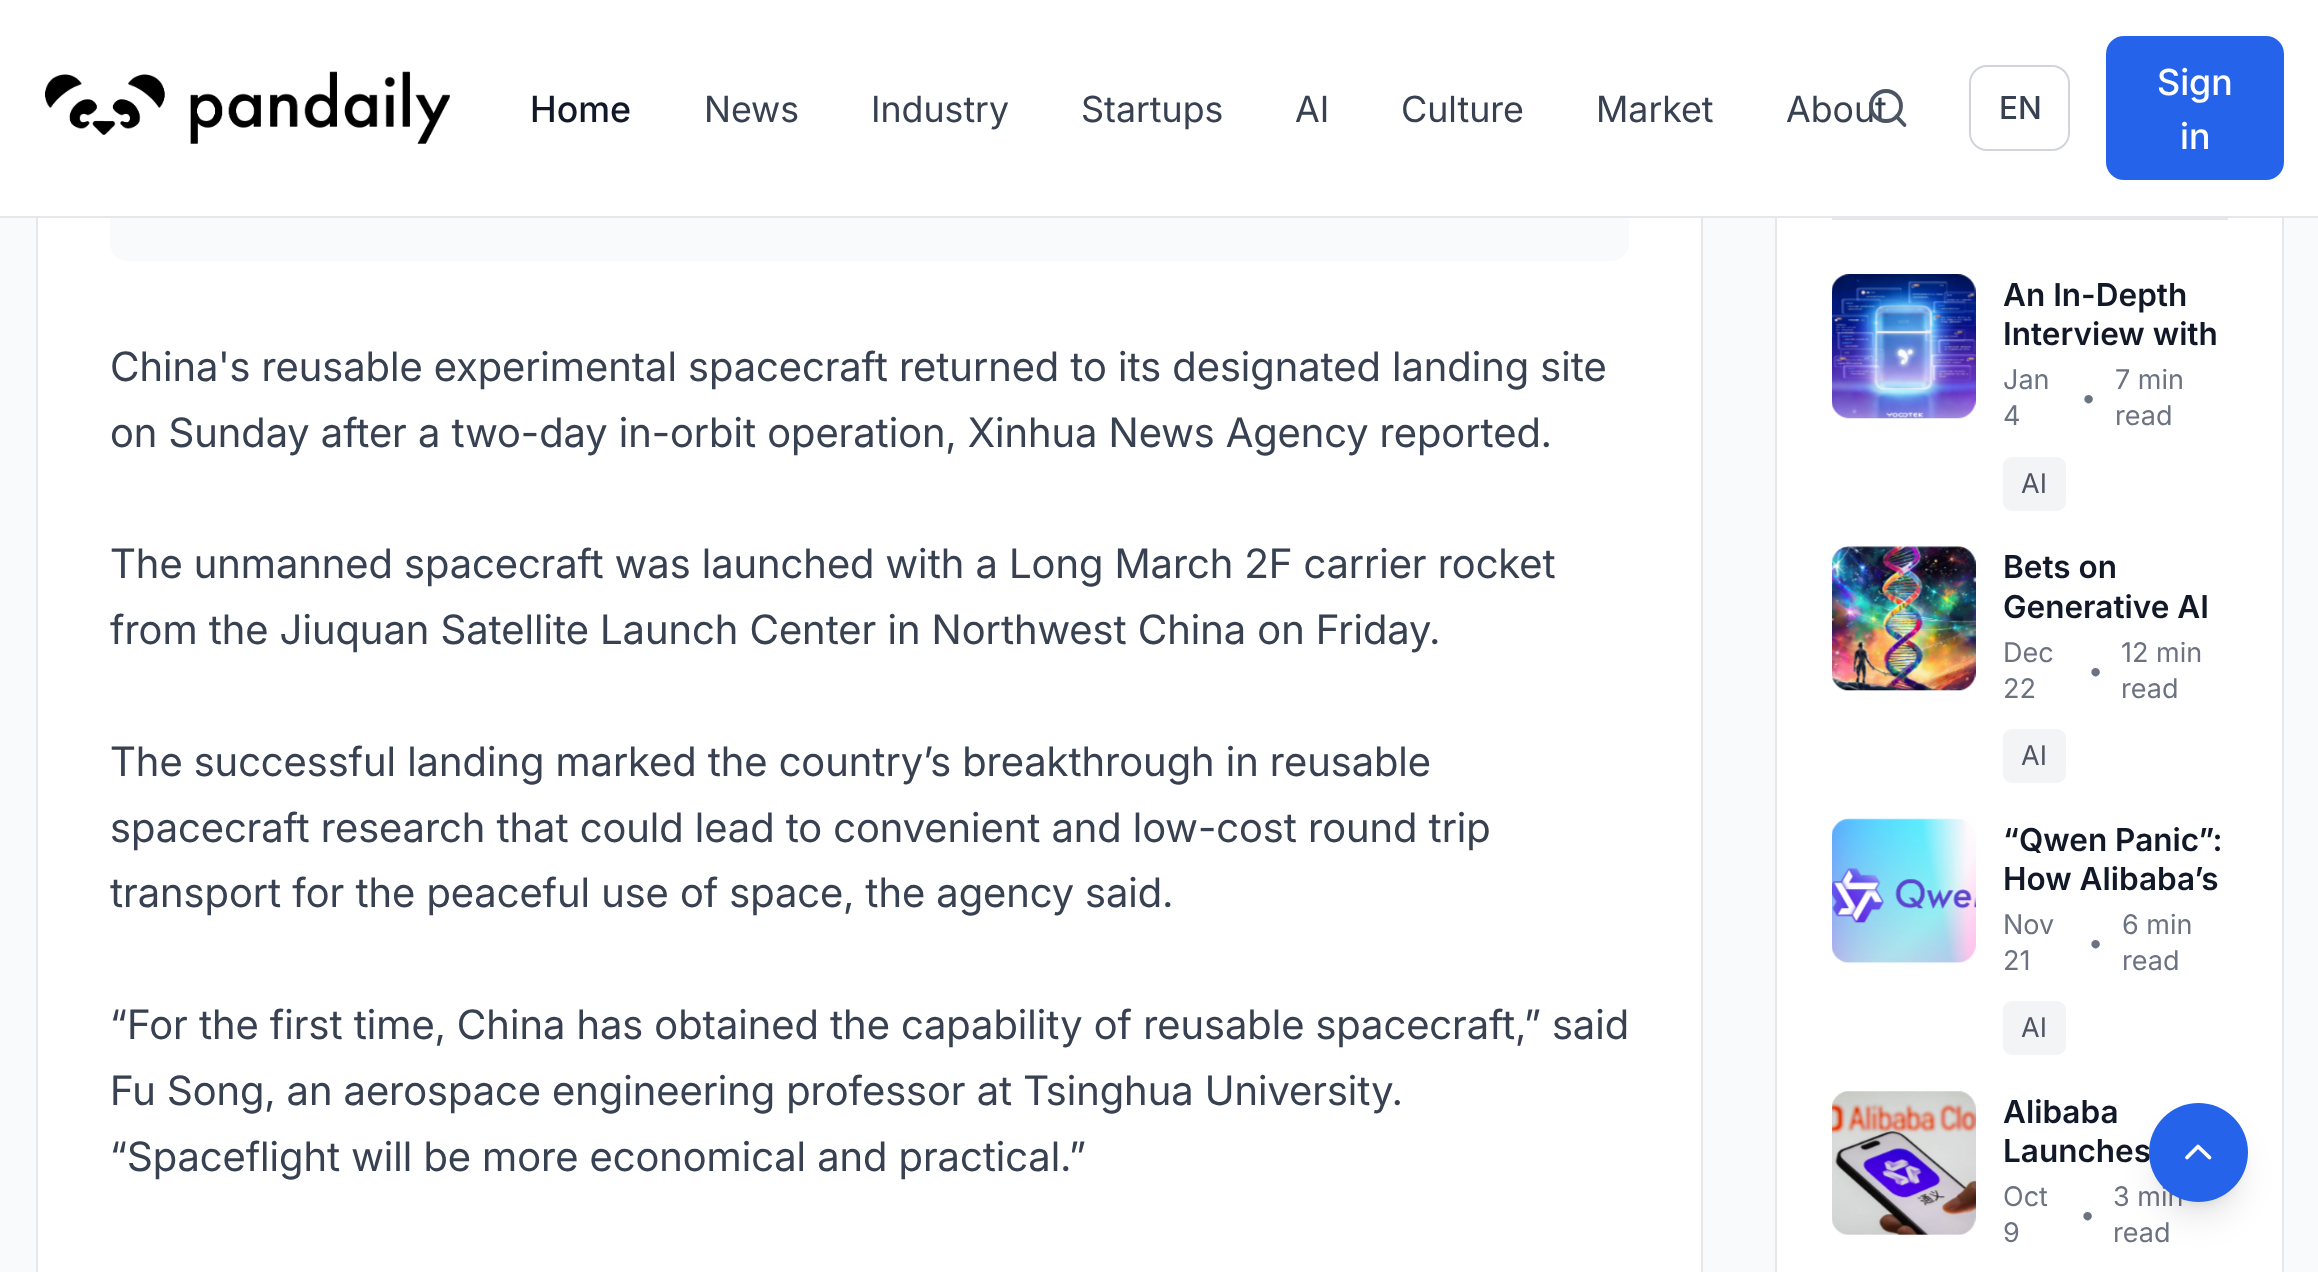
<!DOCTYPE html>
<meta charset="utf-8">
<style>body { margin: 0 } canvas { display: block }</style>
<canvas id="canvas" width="2318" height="1272"></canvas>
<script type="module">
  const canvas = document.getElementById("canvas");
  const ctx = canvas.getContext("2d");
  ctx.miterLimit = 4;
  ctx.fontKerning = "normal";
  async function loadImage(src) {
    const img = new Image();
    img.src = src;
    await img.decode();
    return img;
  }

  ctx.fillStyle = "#f9fafb";
  ctx.fillRect(0, 0, 2318, 1272);
  ctx.fillStyle = "#ffffff";
  ctx.fillRect(38, 218, 1663, 1054);
  ctx.strokeStyle = "#e5e7eb";
  ctx.lineWidth = 2;
  ctx.strokeRect(37, -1, 1665, 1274);
  ctx.fillStyle = "#f9fafb";
  ctx.beginPath();
  ctx.roundRect(110, 23, 1519, 238, 18);
  ctx.fill();
  ctx.fillStyle = "#ffffff";
  ctx.fillRect(1777, 218, 505, 1054);
  ctx.strokeRect(1776, 73, 507, 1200);
  ctx.fillRect(0, 0, 2318, 216);
  ctx.fillStyle = "#e5e7eb";
  ctx.fillRect(0, 216, 2318, 2);
  ctx.drawImage(await loadImage("img1.png"), 45, 71, 405, 73);
  ctx.font = "500 36px Inter";
  ctx.fillStyle = "#111827";
  ctx.fillText("Home", 530, 122);
  ctx.font = "36px 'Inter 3'";
  ctx.fillStyle = "#374151";
  ctx.fillText("News", 704, 122);
  ctx.fillText("Industry", 871, 122);
  ctx.fillText("Startups", 1081, 122);
  ctx.fillText("AI", 1295, 122);
  ctx.fillText("Culture", 1401, 122);
  ctx.fillText("Market", 1596, 122);
  ctx.fillText("About", 1786, 122);
  ctx.beginPath();
  ctx.moveTo(1904.5, 125);
  ctx.lineTo(1896.5, 116.5);
  ctx.strokeStyle = "#4b5563";
  ctx.lineWidth = 3.8;
  ctx.lineCap = "round";
  ctx.lineJoin = "round";
  ctx.stroke();
  ctx.beginPath();
  ctx.arc(1886, 106, 15, 0, Math.PI * 2);
  ctx.stroke();
  ctx.beginPath();
  ctx.roundRect(1970, 66, 99, 84, 17);
  ctx.strokeStyle = "#d1d5db";
  ctx.lineWidth = 2;
  ctx.lineJoin = "miter";
  ctx.stroke();
  ctx.font = "500 31.5px 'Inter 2'";
  ctx.fillText("EN", 1999, 119);
  ctx.fillStyle = "#2563eb";
  ctx.beginPath();
  ctx.roundRect(2106, 36, 178, 144, 18);
  ctx.fill();
  ctx.font = "500 36px Inter";
  ctx.fillStyle = "#ffffff";
  ctx.fillText("Sign", 2157, 95);
  ctx.fillText("in", 2180, 149);
  ctx.font = "40.5px Inter";
  ctx.fillStyle = "#374151";
  ctx.fillText("China's reusable experimental spacecraft returned to its designated landing site", 110, 381);
  ctx.fillText("on Sunday after a two-day in-orbit operation, Xinhua News Agency reported.", 110, 447);
  ctx.fillText("The unmanned spacecraft was launched with a Long March 2F carrier rocket", 110, 578);
  ctx.fillText("from the Jiuquan Satellite Launch Center in Northwest China on Friday.", 110, 644);
  ctx.fillText("The successful landing marked the country’s breakthrough in reusable", 110, 776);
  ctx.fillText("spacecraft research that could lead to convenient and low-cost round trip", 110, 842);
  ctx.fillText("transport for the peaceful use of space, the agency said.", 110, 907);
  ctx.fillText("“For the first time, China has obtained the capability of reusable spacecraft,” said", 110, 1039);
  ctx.fillText("Fu Song, an aerospace engineering professor at Tsinghua University.", 110, 1105);
  ctx.fillText("“Spaceflight will be more economical and practical.”", 110, 1171);
  ctx.fillStyle = "#e5e7eb";
  ctx.fillRect(1832, 218, 396, 2);
  ctx.drawImage(await loadImage("img2.png"), 1832, 274, 144, 145);
  ctx.font = "600 31.5px Inter";
  ctx.fillStyle = "#111827";
  ctx.fillText("An In-Depth", 2003, 306);
  ctx.fillText("Interview with", 2003, 345);
  ctx.font = "27px 'Inter 2'";
  ctx.fillStyle = "#6b7280";
  ctx.fillText("Jan", 2003, 389);
  ctx.fillText("4", 2003, 425);
  ctx.fillText("•", 2081, 407);
  ctx.fillText("7 min", 2115, 389);
  ctx.fillText("read", 2115, 425);
  ctx.fillStyle = "#f3f4f6";
  ctx.beginPath();
  ctx.roundRect(2003, 457, 63, 54, 9);
  ctx.fill();
  ctx.fillStyle = "#4b5563";
  ctx.fillText("AI", 2021, 493);
  ctx.drawImage(await loadImage("img3.png"), 1832, 546, 144, 145);
  ctx.font = "600 31.5px Inter";
  ctx.fillStyle = "#111827";
  ctx.fillText("Bets on", 2003, 578);
  ctx.fillText("Generative AI", 2003, 618);
  ctx.font = "27px 'Inter 2'";
  ctx.fillStyle = "#6b7280";
  ctx.fillText("Dec", 2003, 662);
  ctx.fillText("22", 2003, 698);
  ctx.fillText("•", 2088, 680);
  ctx.fillText("12 min", 2121, 662);
  ctx.fillText("read", 2121, 698);
  ctx.fillStyle = "#f3f4f6";
  ctx.beginPath();
  ctx.roundRect(2003, 729, 63, 54, 9);
  ctx.fill();
  ctx.fillStyle = "#4b5563";
  ctx.fillText("AI", 2021, 765);
  ctx.drawImage(await loadImage("img4.png"), 1832, 818, 144, 146);
  ctx.font = "600 31.5px Inter";
  ctx.fillStyle = "#111827";
  ctx.fillText("“Qwen Panic”:", 2003, 851);
  ctx.fillText("How Alibaba’s", 2003, 890);
  ctx.font = "27px 'Inter 2'";
  ctx.fillStyle = "#6b7280";
  ctx.fillText("Nov", 2003, 934);
  ctx.fillText("21", 2003, 970);
  ctx.fillText("•", 2088, 952);
  ctx.fillText("6 min", 2122, 934);
  ctx.fillText("read", 2122, 970);
  ctx.fillStyle = "#f3f4f6";
  ctx.beginPath();
  ctx.roundRect(2003, 1001, 63, 54, 9);
  ctx.fill();
  ctx.fillStyle = "#4b5563";
  ctx.fillText("AI", 2021, 1037);
  ctx.drawImage(await loadImage("img5.png"), 1832, 1091, 144, 144);
  ctx.font = "600 31.5px Inter";
  ctx.fillStyle = "#111827";
  ctx.fillText("Alibaba", 2003, 1123);
  ctx.fillText("Launches", 2003, 1162);
  ctx.font = "27px 'Inter 2'";
  ctx.fillStyle = "#6b7280";
  ctx.fillText("Oct", 2003, 1206);
  ctx.fillText("9", 2003, 1242);
  ctx.fillText("•", 2080, 1224);
  ctx.fillText("3 min", 2113, 1206);
  ctx.fillText("read", 2113, 1242);
  ctx.fillStyle = "rgba(0, 0, 0, 0.1)";
  ctx.filter = "blur(7px)";
  ctx.beginPath();
  ctx.roundRect(2158, 1121, 81, 81, 40.5);
  ctx.fill();
  ctx.filter = "none";
  ctx.filter = "blur(17px)";
  ctx.beginPath();
  ctx.roundRect(2156, 1132, 85, 85, 42.5);
  ctx.fill();
  ctx.filter = "none";
  ctx.fillStyle = "#2563eb";
  ctx.beginPath();
  ctx.arc(2198.5, 1152.5, 49.5, 0, Math.PI * 2);
  ctx.fill();
  ctx.beginPath();
  ctx.moveTo(2209.5, 1157.5);
  ctx.lineTo(2198, 1146.5);
  ctx.lineTo(2187, 1157.5);
  ctx.strokeStyle = "#ffffff";
  ctx.lineWidth = 3.8;
  ctx.lineJoin = "round";
  ctx.stroke();
</script>
